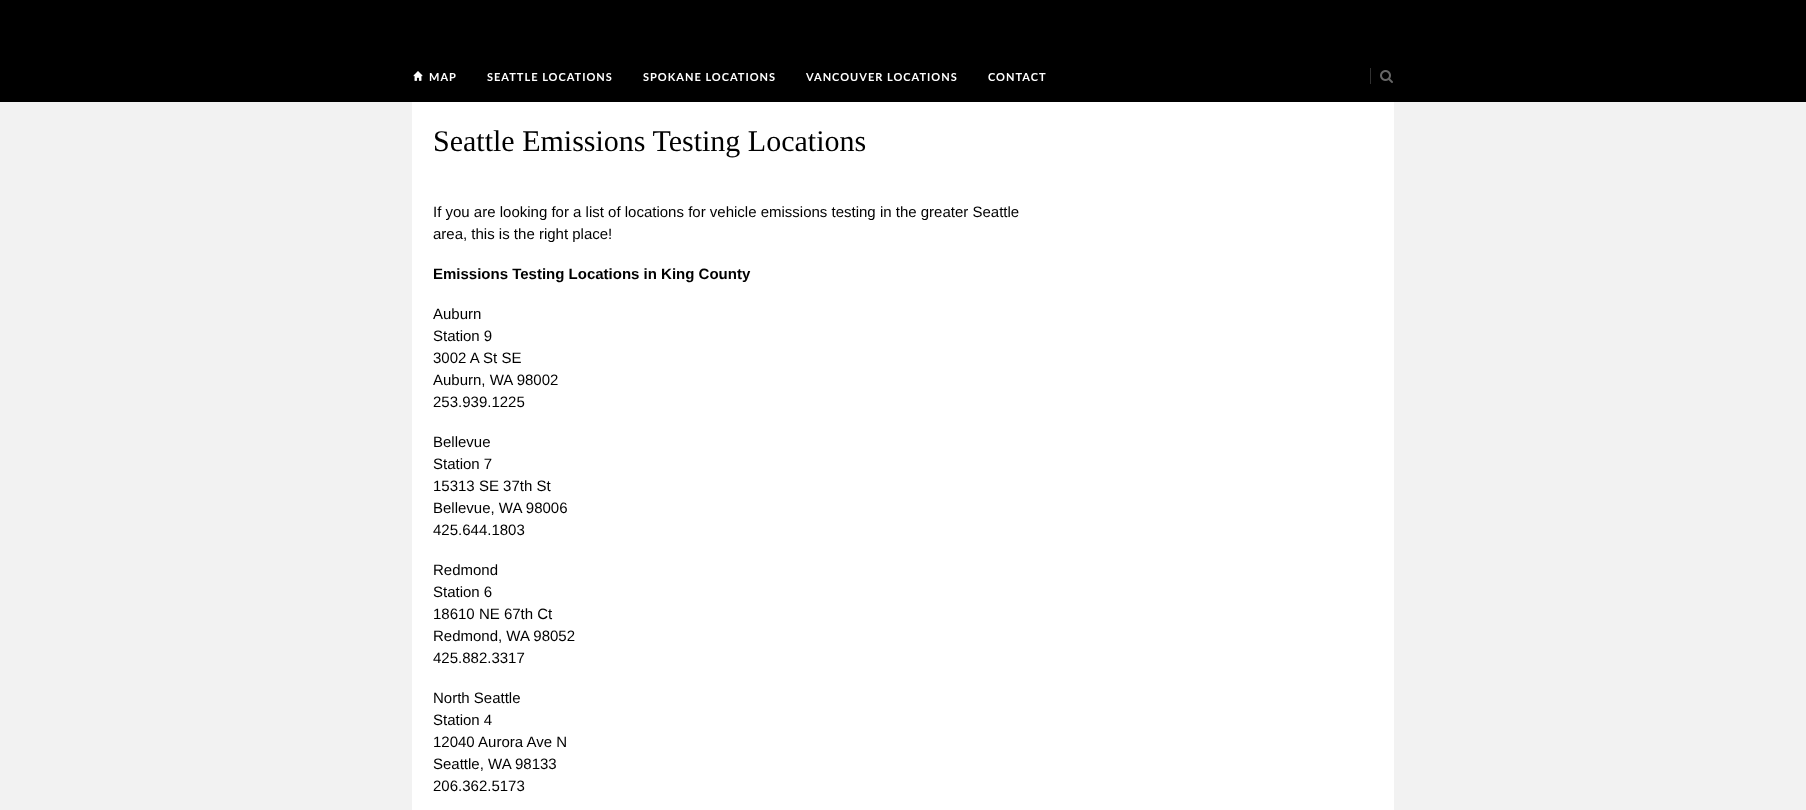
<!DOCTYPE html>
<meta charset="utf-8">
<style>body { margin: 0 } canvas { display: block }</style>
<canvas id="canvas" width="1806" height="810"></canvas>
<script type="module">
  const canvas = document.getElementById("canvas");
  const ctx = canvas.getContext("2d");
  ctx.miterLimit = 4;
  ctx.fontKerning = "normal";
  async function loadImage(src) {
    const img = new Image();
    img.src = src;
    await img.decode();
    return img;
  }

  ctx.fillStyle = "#f2f2f2";
  ctx.fillRect(0, 0, 1806, 810);
  ctx.fillStyle = "#000000";
  ctx.fillRect(0, 0, 1806, 102);
  ctx.drawImage(await loadImage("img1.png"), 413, 71, 10, 10);
  ctx.letterSpacing = "1px";
  ctx.font = "bold 11px Lato";
  ctx.fillStyle = "#ffffff";
  ctx.fillText("MAP", 429, 81);
  ctx.fillText("SEATTLE LOCATIONS", 487, 81);
  ctx.fillText("SPOKANE LOCATIONS", 643, 81);
  ctx.fillText("VANCOUVER LOCATIONS", 806, 81);
  ctx.fillText("CONTACT", 988, 81);
  ctx.fillStyle = "#313131";
  ctx.fillRect(1370, 68, 1, 16);
  ctx.drawImage(await loadImage("img2.png"), 1380, 70, 13, 13);
  ctx.fillStyle = "#ffffff";
  ctx.fillRect(412, 102, 982, 708);
  ctx.letterSpacing = "0px";
  ctx.font = "30px Liberation Serif";
  ctx.fillStyle = "#000000";
  ctx.fillText("Seattle Emissions Testing Locations", 433, 151);
  ctx.font = "15px Liberation Sans";
  ctx.fillText("If you are looking for a list of locations for vehicle emissions testing in the greater Seattle", 433, 217);
  ctx.fillText("area, this is the right place!", 433, 239);
  ctx.font = "bold 15px Liberation Sans";
  ctx.fillText("Emissions Testing Locations in King County", 433, 279);
  ctx.font = "15px Liberation Sans";
  ctx.fillText("Auburn", 433, 319);
  ctx.fillText("Station 9", 433, 341);
  ctx.fillText("3002 A St SE", 433, 363);
  ctx.fillText("Auburn, WA 98002", 433, 385);
  ctx.fillText("253.939.1225", 433, 407);
  ctx.fillText("Bellevue", 433, 447);
  ctx.fillText("Station 7", 433, 469);
  ctx.fillText("15313 SE 37th St", 433, 491);
  ctx.fillText("Bellevue, WA 98006", 433, 513);
  ctx.fillText("425.644.1803", 433, 535);
  ctx.fillText("Redmond", 433, 575);
  ctx.fillText("Station 6", 433, 597);
  ctx.fillText("18610 NE 67th Ct", 433, 619);
  ctx.fillText("Redmond, WA 98052", 433, 641);
  ctx.fillText("425.882.3317", 433, 663);
  ctx.fillText("North Seattle", 433, 703);
  ctx.fillText("Station 4", 433, 725);
  ctx.fillText("12040 Aurora Ave N", 433, 747);
  ctx.fillText("Seattle, WA 98133", 433, 769);
  ctx.fillText("206.362.5173", 433, 791);
</script>
